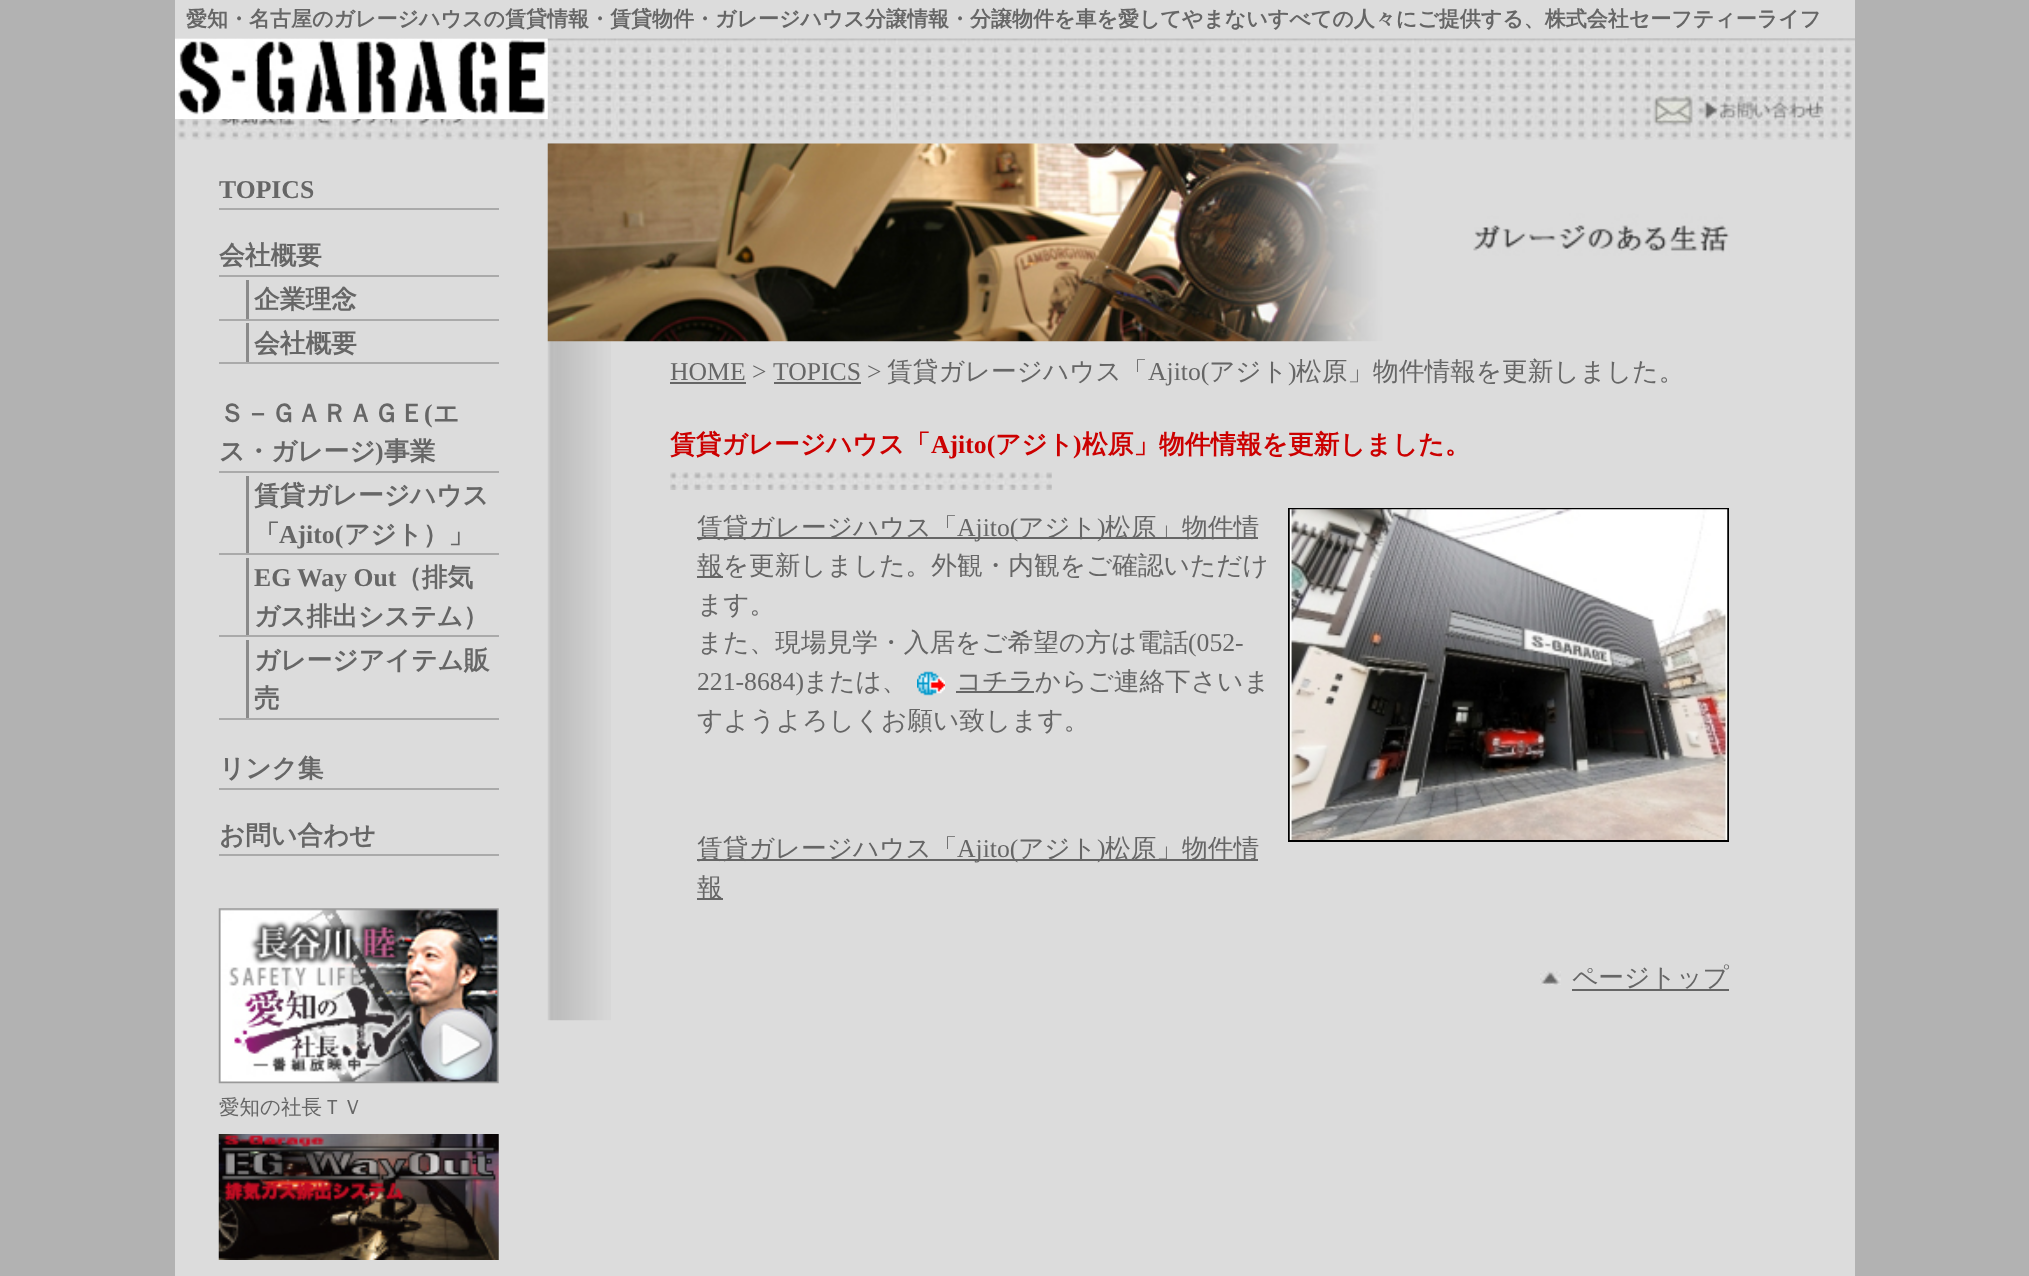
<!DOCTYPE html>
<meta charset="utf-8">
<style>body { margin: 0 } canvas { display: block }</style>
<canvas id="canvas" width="2029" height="1276"></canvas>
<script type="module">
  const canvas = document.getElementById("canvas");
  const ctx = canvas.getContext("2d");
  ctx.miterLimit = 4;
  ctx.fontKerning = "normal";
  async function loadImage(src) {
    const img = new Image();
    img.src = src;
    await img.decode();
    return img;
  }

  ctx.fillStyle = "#b2b2b2";
  ctx.fillRect(0, 0, 2029, 1276);
  ctx.fillStyle = "#dcdcdc";
  ctx.fillRect(175, 0, 1680, 1276);
  ctx.font = "bold 21px WenQuanYi Zen Hei";
  ctx.fillStyle = "#666666";
  ctx.fillText("愛知・名古屋のガレージハウスの賃貸情報・賃貸物件・ガレージハウス分譲情報・分譲物件を車を愛してやまないすべての人々にご提供する、株式会社セーフティーライフ", 186, 26);
  ctx.drawImage(await loadImage("img1.png"), 175, 38, 1680, 102);
  ctx.drawImage(await loadImage("img2.png"), 175, 38, 373, 81);
  ctx.drawImage(await loadImage("img3.png"), 1627, 38, 228, 100);
  ctx.fillStyle = "#aaaaaa";
  ctx.fillRect(219, 208, 280, 2);
  ctx.font = "bold 25.7px Liberation Serif";
  ctx.fillStyle = "#666666";
  ctx.fillText("TOPICS", 219, 198);
  ctx.fillStyle = "#aaaaaa";
  ctx.fillRect(219, 275, 280, 2);
  ctx.font = "bold 25.7px WenQuanYi Zen Hei";
  ctx.fillStyle = "#666666";
  ctx.fillText("会社概要", 219, 264);
  ctx.fillStyle = "#8a8a8a";
  ctx.fillRect(246, 280, 3, 41);
  ctx.fillStyle = "#aaaaaa";
  ctx.fillRect(219, 319, 280, 2);
  ctx.fillStyle = "#666666";
  ctx.fillText("企業理念", 254, 308);
  ctx.fillStyle = "#8a8a8a";
  ctx.fillRect(246, 323, 3, 41);
  ctx.fillStyle = "#aaaaaa";
  ctx.fillRect(219, 362, 280, 2);
  ctx.fillStyle = "#666666";
  ctx.fillText("会社概要", 254, 352);
  ctx.fillStyle = "#aaaaaa";
  ctx.fillRect(219, 471, 280, 2);
  ctx.fillStyle = "#666666";
  ctx.fillText("Ｓ－ＧＡＲＡＧＥ", 219, 422);
  ctx.font = "bold 25.7px Liberation Serif";
  ctx.fillText("(", 424, 422);
  ctx.font = "bold 25.7px WenQuanYi Zen Hei";
  ctx.fillText("エ", 433, 422);
  ctx.fillText("ス・ガレージ", 219, 460);
  ctx.font = "bold 25.7px Liberation Serif";
  ctx.fillText(")", 375, 460);
  ctx.font = "bold 25.7px WenQuanYi Zen Hei";
  ctx.fillText("事業", 384, 460);
  ctx.fillStyle = "#8a8a8a";
  ctx.fillRect(246, 476, 3, 79);
  ctx.fillStyle = "#aaaaaa";
  ctx.fillRect(219, 553, 280, 2);
  ctx.fillStyle = "#666666";
  ctx.fillText("賃貸ガレージハウス", 254, 504);
  ctx.fillText("「", 254, 543);
  ctx.font = "bold 25.7px Liberation Serif";
  ctx.fillText("Ajito(", 279, 543);
  ctx.font = "bold 25.7px WenQuanYi Zen Hei";
  ctx.fillText("アジト）」", 344, 543);
  ctx.fillStyle = "#8a8a8a";
  ctx.fillRect(246, 558, 3, 79);
  ctx.fillStyle = "#aaaaaa";
  ctx.fillRect(219, 635, 280, 2);
  ctx.font = "bold 25.7px Liberation Serif";
  ctx.fillStyle = "#666666";
  ctx.fillText("EG Way Out", 254, 586);
  ctx.font = "bold 25.7px WenQuanYi Zen Hei";
  ctx.fillText("（排気", 396, 586);
  ctx.fillText("ガス排出システム）", 254, 625);
  ctx.fillStyle = "#8a8a8a";
  ctx.fillRect(246, 640, 3, 80);
  ctx.fillStyle = "#aaaaaa";
  ctx.fillRect(219, 718, 280, 2);
  ctx.fillStyle = "#666666";
  ctx.fillText("ガレージアイテム販", 254, 669);
  ctx.fillText("売", 254, 707);
  ctx.fillStyle = "#aaaaaa";
  ctx.fillRect(219, 788, 280, 2);
  ctx.fillStyle = "#666666";
  ctx.fillText("リンク集", 219, 777);
  ctx.fillStyle = "#aaaaaa";
  ctx.fillRect(219, 854, 280, 2);
  ctx.fillStyle = "#666666";
  ctx.fillText("お問い合わせ", 219, 844);
  ctx.drawImage(await loadImage("img4.png"), 218, 908, 281, 176);
  ctx.font = "500 20.5px WenQuanYi Zen Hei";
  ctx.fillText("愛知の社長ＴＶ", 219, 1114);
  ctx.drawImage(await loadImage("img5.png"), 218, 1134, 281, 126);
  ctx.drawImage(await loadImage("img6.png"), 547, 143, 64, 878);
  ctx.drawImage(await loadImage("img7.png"), 547, 143, 1183, 199);
  ctx.font = "25.7px Liberation Serif";
  ctx.fillText("HOME >", 670, 380);
  ctx.fillRect(670, 382, 76, 2);
  ctx.fillText("TOPICS", 773, 380);
  ctx.fillRect(774, 382, 87, 2);
  ctx.fillText(">", 867, 380);
  ctx.font = "500 25.7px WenQuanYi Zen Hei";
  ctx.fillText("賃貸ガレージハウス「", 887, 380);
  ctx.font = "25.7px Liberation Serif";
  ctx.fillText("Ajito(", 1148, 380);
  ctx.font = "500 25.7px WenQuanYi Zen Hei";
  ctx.fillText("アジト", 1209, 380);
  ctx.font = "25.7px Liberation Serif";
  ctx.fillText(")", 1288, 380);
  ctx.font = "500 25.7px WenQuanYi Zen Hei";
  ctx.fillText("松原」物件情報を更新しました。", 1296, 380);
  ctx.drawImage(await loadImage("img8.png"), 670, 472, 382, 18);
  ctx.font = "bold 25.7px WenQuanYi Zen Hei";
  ctx.fillStyle = "#cc0000";
  ctx.fillText("賃貸ガレージハウス「", 670, 453);
  ctx.font = "bold 25.7px Liberation Serif";
  ctx.fillText("Ajito(", 931, 453);
  ctx.font = "bold 25.7px WenQuanYi Zen Hei";
  ctx.fillText("アジト", 995, 453);
  ctx.font = "bold 25.7px Liberation Serif";
  ctx.fillText(")", 1073, 453);
  ctx.font = "bold 25.7px WenQuanYi Zen Hei";
  ctx.fillText("松原」物件情報を更新しました。", 1082, 453);
  ctx.fillStyle = "#666666";
  ctx.fillRect(697, 537, 561, 2);
  ctx.font = "500 25.7px WenQuanYi Zen Hei";
  ctx.fillText("賃貸ガレージハウス「", 697, 536);
  ctx.font = "25.7px Liberation Serif";
  ctx.fillText("Ajito(", 957, 536);
  ctx.font = "500 25.7px WenQuanYi Zen Hei";
  ctx.fillText("アジト", 1018, 536);
  ctx.font = "25.7px Liberation Serif";
  ctx.fillText(")", 1097, 536);
  ctx.font = "500 25.7px WenQuanYi Zen Hei";
  ctx.fillText("松原」物件情", 1105, 536);
  ctx.fillRect(697, 576, 26, 2);
  ctx.fillText("報を更新しました。外観・内観をご確認いただけ", 697, 574);
  ctx.fillText("ます。", 697, 613);
  ctx.fillText("また、現場見学・入居をご希望の方は電話", 697, 651);
  ctx.font = "25.7px Liberation Serif";
  ctx.fillText("(052-", 1188, 651);
  ctx.fillText("221-8684)", 697, 690);
  ctx.font = "500 25.7px WenQuanYi Zen Hei";
  ctx.fillText("または、", 803, 690);
  ctx.drawImage(await loadImage("img9.png"), 917, 671, 28, 25);
  ctx.fillRect(956, 691, 78, 2);
  ctx.fillText("コチラからご連絡下さいま", 956, 690);
  ctx.fillText("すようよろしくお願い致します。", 697, 729);
  ctx.strokeStyle = "#000000";
  ctx.lineWidth = 2;
  ctx.strokeRect(1289, 509, 439, 332);
  ctx.drawImage(await loadImage("img10.png"), 1289, 509, 439, 331);
  ctx.fillRect(697, 859, 561, 2);
  ctx.fillText("賃貸ガレージハウス「", 697, 857);
  ctx.font = "25.7px Liberation Serif";
  ctx.fillText("Ajito(", 957, 857);
  ctx.font = "500 25.7px WenQuanYi Zen Hei";
  ctx.fillText("アジト", 1018, 857);
  ctx.font = "25.7px Liberation Serif";
  ctx.fillText(")", 1097, 857);
  ctx.font = "500 25.7px WenQuanYi Zen Hei";
  ctx.fillText("松原」物件情", 1105, 857);
  ctx.fillRect(697, 898, 26, 2);
  ctx.fillText("報", 697, 896);
  ctx.drawImage(await loadImage("img11.png"), 1540, 971, 21, 14);
  ctx.fillRect(1572, 989, 157, 2);
  ctx.fillText("ページトップ", 1572, 986);
</script>
